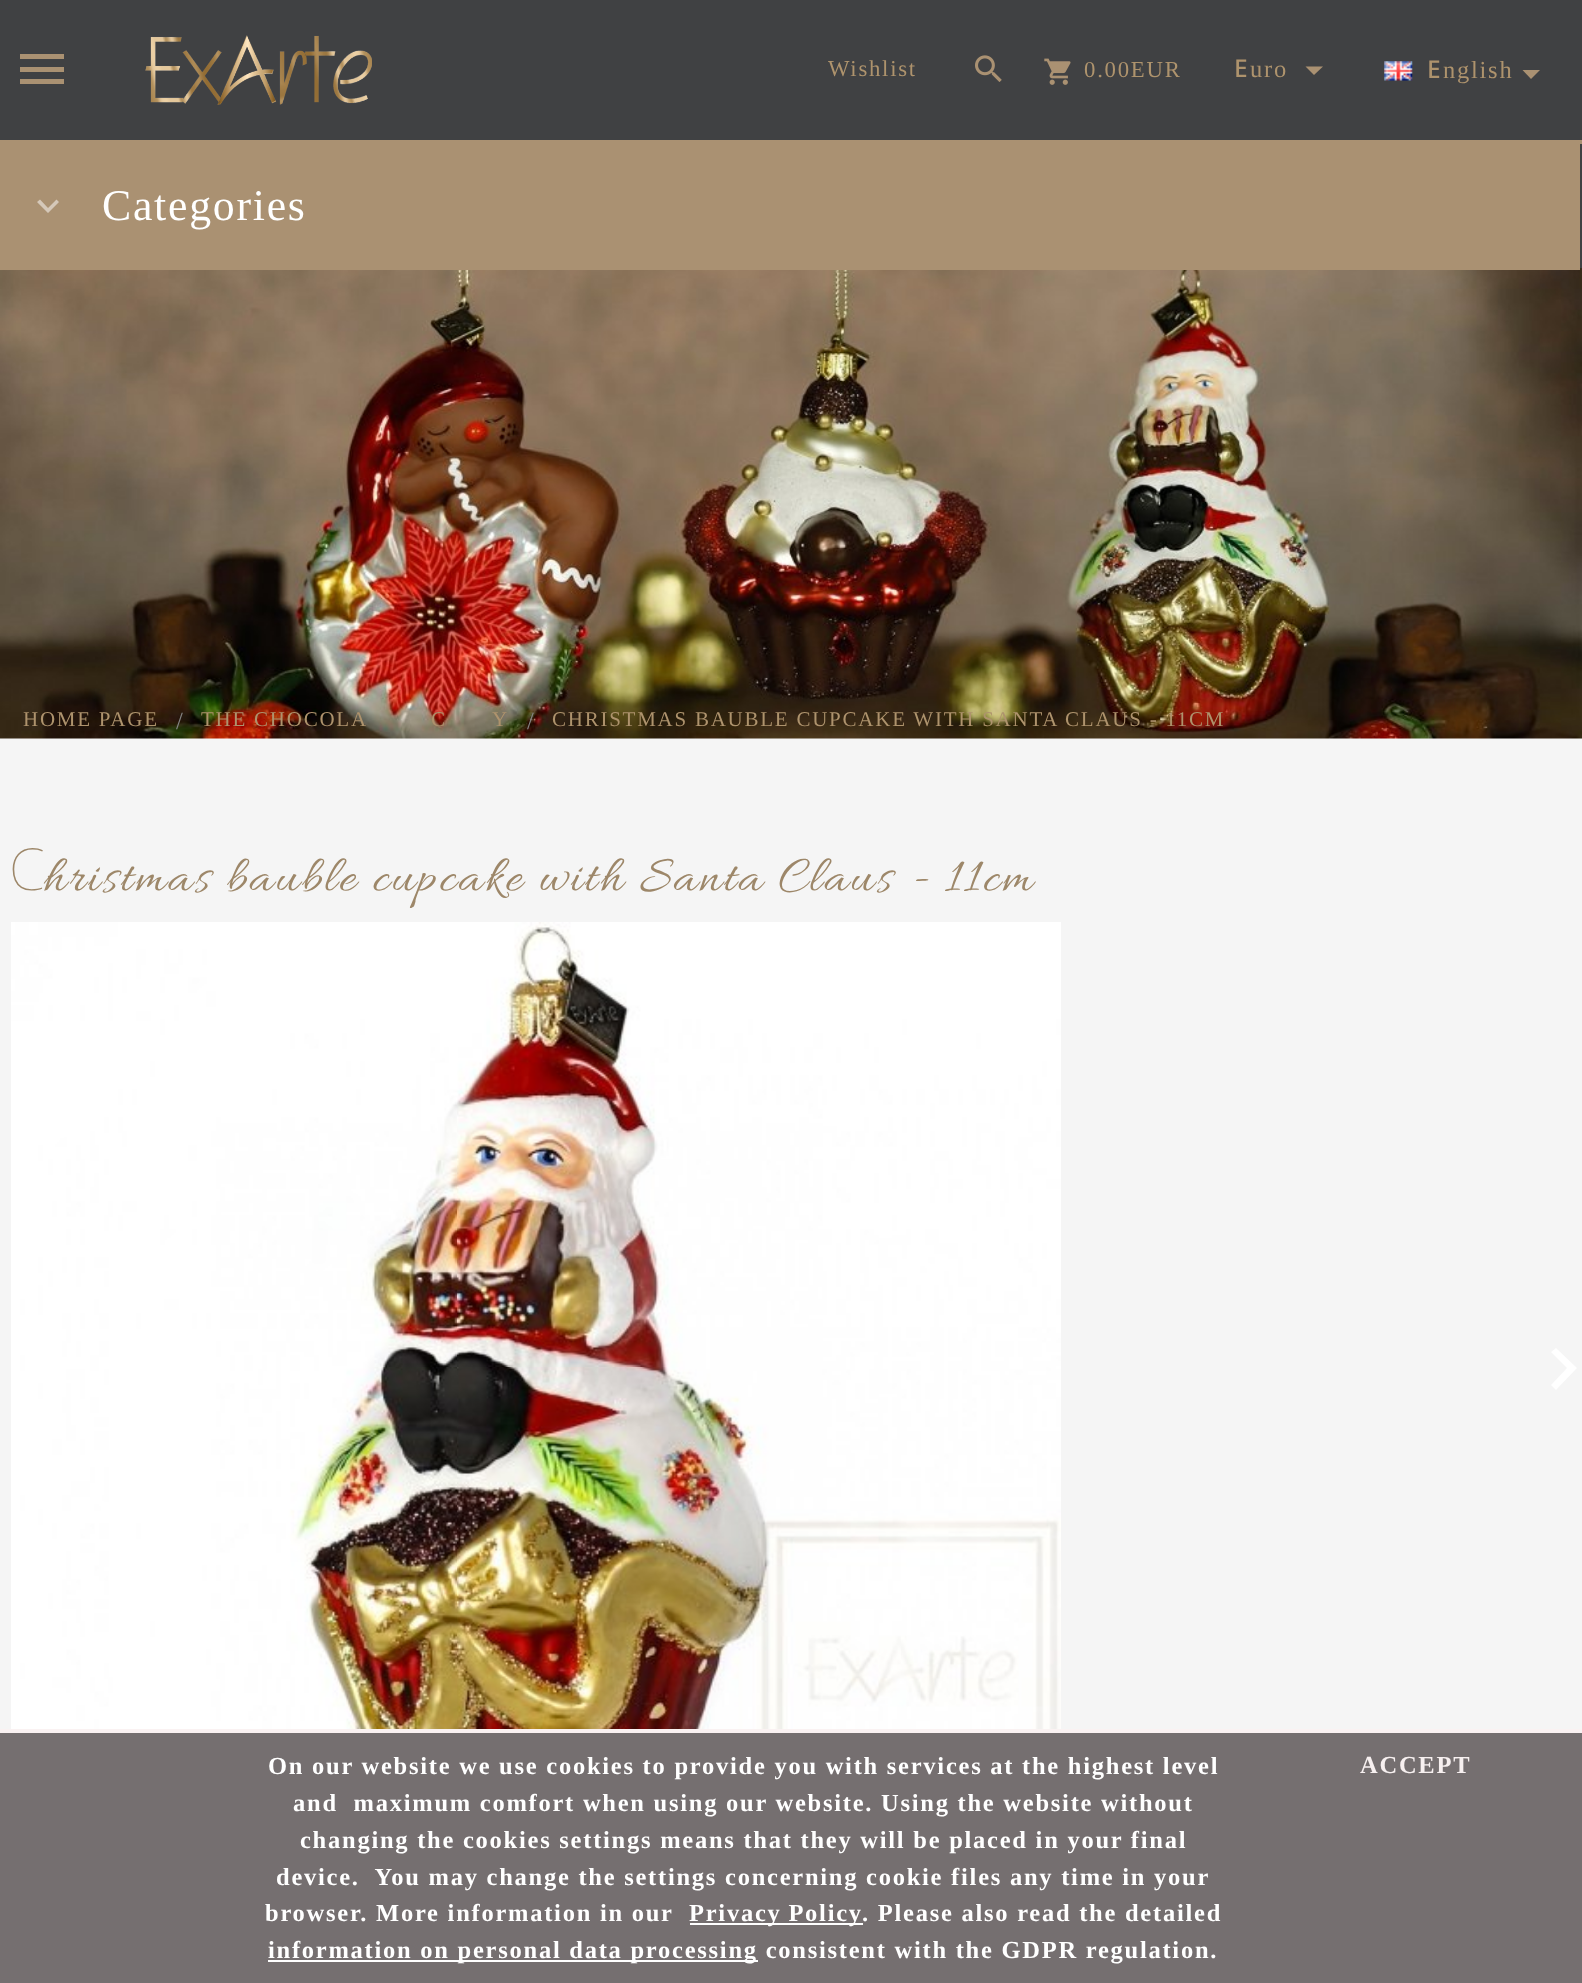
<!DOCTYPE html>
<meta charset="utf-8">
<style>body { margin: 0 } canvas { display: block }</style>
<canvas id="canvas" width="1582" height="1983"></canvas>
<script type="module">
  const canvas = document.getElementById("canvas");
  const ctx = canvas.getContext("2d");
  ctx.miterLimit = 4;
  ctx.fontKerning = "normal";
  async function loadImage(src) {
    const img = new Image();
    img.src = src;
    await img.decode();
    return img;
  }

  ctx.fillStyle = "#f5f5f5";
  ctx.fillRect(0, 0, 1582, 1983);
  ctx.fillStyle = "#404143";
  ctx.fillRect(0, 0, 1582, 140);
  ctx.fillStyle = "#aa9172";
  ctx.fillRect(0, 140, 1582, 4);
  ctx.beginPath();
  ctx.moveTo(20, 54);
  ctx.lineTo(64, 54);
  ctx.lineTo(64, 59);
  ctx.lineTo(20, 59);
  ctx.closePath();
  ctx.moveTo(20, 67);
  ctx.lineTo(64, 67);
  ctx.lineTo(64, 72);
  ctx.lineTo(20, 72);
  ctx.closePath();
  ctx.moveTo(20, 79);
  ctx.lineTo(64, 79);
  ctx.lineTo(64, 84);
  ctx.lineTo(20, 84);
  ctx.closePath();
  ctx.fill();
  ctx.drawImage(await loadImage("img1.png"), 145, 35, 227, 70);
  ctx.letterSpacing = "1.75px";
  ctx.font = "22.75px Liberation Serif";
  ctx.fillStyle = "#ae936d";
  ctx.fillText("Wishlist", 828, 76);
  ctx.drawImage(await loadImage("img2.png"), 975, 55, 27, 27);
  ctx.drawImage(await loadImage("img3.png"), 1044, 58, 27, 27);
  ctx.fillText("0.00EUR", 1084, 77);
  ctx.font = "500 24.5px Noto Sans";
  ctx.fillText("E", 1234, 77);
  ctx.font = "24.5px Liberation Serif";
  ctx.fillText("uro", 1250, 77);
  ctx.fillStyle = "#aa9172";
  ctx.beginPath();
  ctx.moveTo(1305.5, 66.5);
  ctx.lineTo(1323, 66.5);
  ctx.lineTo(1314, 75);
  ctx.closePath();
  ctx.fill();
  ctx.drawImage(await loadImage("img4.png"), 1384, 61, 29, 20);
  ctx.font = "500 24.5px Noto Sans";
  ctx.fillStyle = "#ae936d";
  ctx.fillText("E", 1427, 78);
  ctx.font = "24.5px Liberation Serif";
  ctx.fillText("nglish", 1443, 78);
  ctx.fillStyle = "#aa9172";
  ctx.beginPath();
  ctx.moveTo(1522.5, 70);
  ctx.lineTo(1540, 70);
  ctx.lineTo(1531, 79);
  ctx.closePath();
  ctx.fill();
  ctx.fillStyle = "#404143";
  ctx.fillRect(1580, 144, 2, 124);
  ctx.drawImage(await loadImage("img5.png"), 0, 268, 1582, 471);
  ctx.fillStyle = "#aa9172";
  ctx.fillRect(0, 144, 1580, 126);
  ctx.fillStyle = "#d5c8b9";
  ctx.beginPath();
  ctx.moveTo(40, 199.5);
  ctx.lineTo(48, 208);
  ctx.lineTo(56.5, 199.5);
  ctx.lineTo(59, 202);
  ctx.lineTo(48, 213);
  ctx.lineTo(37, 202);
  ctx.closePath();
  ctx.fill();
  ctx.font = "43.75px Liberation Serif";
  ctx.fillStyle = "#ffffff";
  ctx.fillText("Categories", 102, 220);
  ctx.font = "21px Liberation Serif";
  ctx.fillStyle = "#ae936d";
  ctx.fillText("HOME PAGE", 23, 726);
  ctx.font = "24.5px Liberation Serif";
  ctx.fillStyle = "#858585";
  ctx.fillText("/", 176, 729);
  ctx.font = "21px Liberation Serif";
  ctx.fillStyle = "#ae936d";
  ctx.fillText("THE CHOCOLA", 201, 726);
  ctx.fillText("C", 431, 726);
  ctx.fillText("Y", 492, 726);
  ctx.font = "24.5px Liberation Serif";
  ctx.fillStyle = "#858585";
  ctx.fillText("/", 527, 729);
  ctx.font = "21px Liberation Serif";
  ctx.fillStyle = "#ae936d";
  ctx.fillText("CHRISTMAS BAUBLE CUPCAKE WITH SANTA CLAUS - 11CM", 552, 726);
  ctx.letterSpacing = "2.6px";
  ctx.font = "100 58px Noto Sans";
  ctx.fillStyle = "#9d8769";
  ctx.fillText("C", 9, 890);
  ctx.font = "52.5px Allura";
  ctx.fillText("hristmas bauble cupcake with Santa Claus - 11cm", 42, 890);
  ctx.drawImage(await loadImage("img6.png"), 11, 922, 1050, 807);
  ctx.fillStyle = "#ffffff";
  ctx.beginPath();
  ctx.moveTo(1551, 1385);
  ctx.lineTo(1567, 1368);
  ctx.lineTo(1551, 1352);
  ctx.lineTo(1556, 1348);
  ctx.lineTo(1577, 1368);
  ctx.lineTo(1556, 1390);
  ctx.closePath();
  ctx.fill();
  ctx.fillStyle = "#756f70";
  ctx.fillRect(0, 1733, 1582, 250);
  ctx.fillStyle = "#faf2f2";
  ctx.fillRect(0, 1729, 1582, 4);
  ctx.letterSpacing = "1.75px";
  ctx.font = "bold 24.5px Liberation Serif";
  ctx.fillStyle = "#ffffff";
  ctx.fillText("On our website we use cookies to provide you with services at the highest level", 268, 1774);
  ctx.fillText("and  maximum comfort when using our website. Using the website without", 293, 1811);
  ctx.fillText("changing the cookies settings means that they will be placed in your final", 300, 1848);
  ctx.fillText("device.  You may change the settings concerning cookie files any time in your", 276, 1885);
  ctx.fillText("browser. More information in our", 265, 1921);
  ctx.fillRect(690, 1923, 173, 2);
  ctx.wordSpacing = "-1px";
  ctx.fillText("Privacy Policy", 689, 1921);
  ctx.wordSpacing = "0px";
  ctx.fillText(". Please also read the detailed", 862, 1921);
  ctx.fillRect(268, 1960, 490, 2);
  ctx.fillText("information on personal data processing consistent with the GDPR regulation.", 268, 1958);
  ctx.fillStyle = "#f7f0f0";
  ctx.fillText("ACCEPT", 1360, 1773);
</script>
